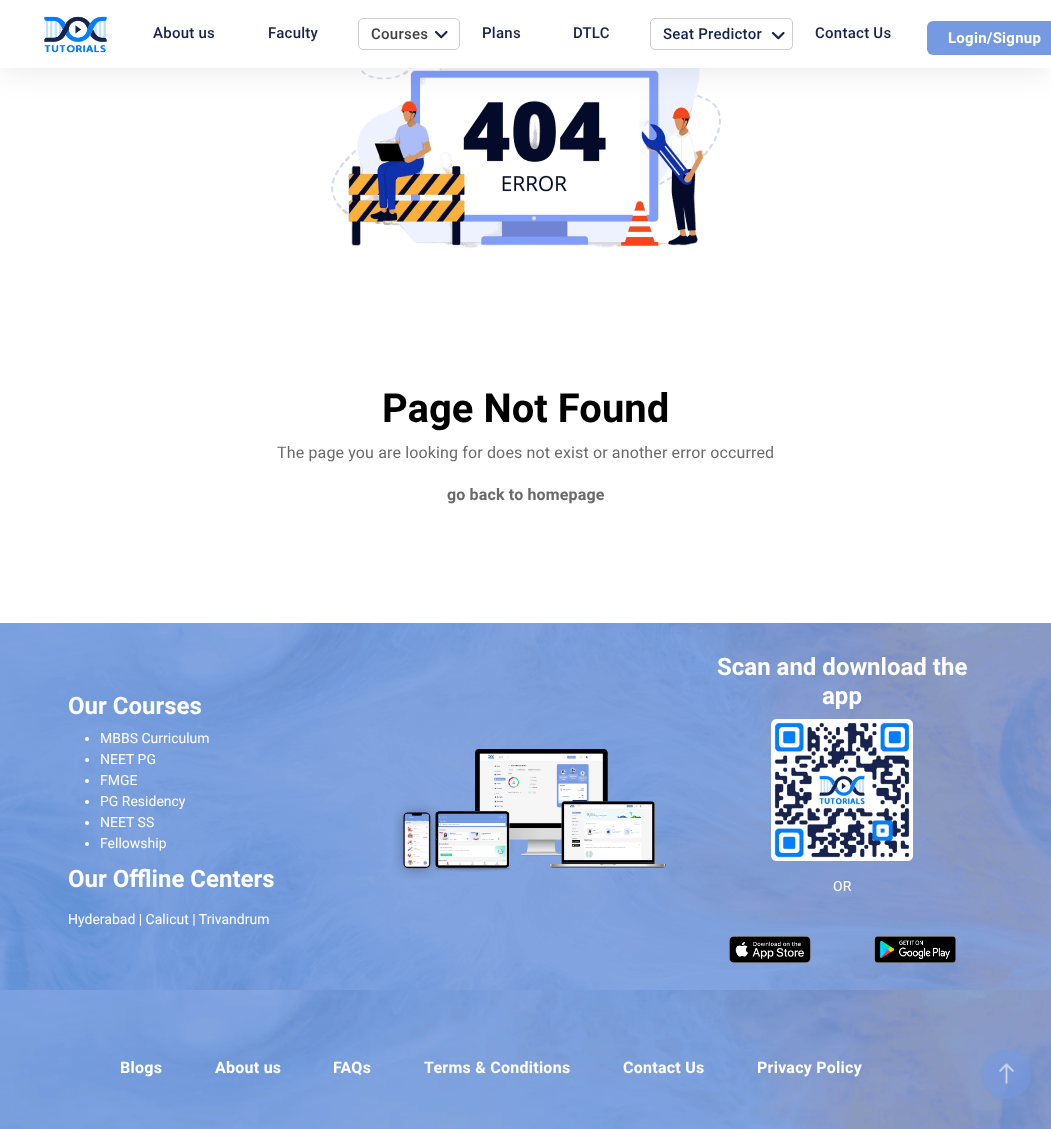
<!DOCTYPE html>
<meta charset="utf-8">
<style>body { margin: 0 } canvas { display: block }</style>
<canvas id="canvas" width="1051" height="1129"></canvas>
<script type="module">
  const canvas = document.getElementById("canvas");
  const ctx = canvas.getContext("2d");
  ctx.miterLimit = 4;
  ctx.fontKerning = "normal";
  async function loadImage(src) {
    const img = new Image();
    img.src = src;
    await img.decode();
    return img;
  }

  ctx.fillStyle = "#ffffff";
  ctx.fillRect(0, 0, 1051, 1129);
  ctx.drawImage(await loadImage("img3.png"), 331, 68, 390, 180);
  ctx.fillStyle = "rgba(0, 0, 0, 0.08)";
  ctx.filter = "blur(15px)";
  ctx.beginPath();
  ctx.rect(0, 4, 1051, 68);
  ctx.fill();
  ctx.filter = "none";
  ctx.fillStyle = "#ffffff";
  ctx.fillRect(0, 0, 1051, 68);
  ctx.drawImage(await loadImage("img1.png"), 44, 16, 63, 37);
  ctx.letterSpacing = "0.25px";
  ctx.font = "500 15px Roboto";
  ctx.fillStyle = "#17224d";
  ctx.fillText("About us", 153, 38);
  ctx.fillText("Faculty", 268, 38);
  ctx.beginPath();
  ctx.roundRect(358.5, 18.5, 101, 31, 4.5);
  ctx.strokeStyle = "#cdcdcd";
  ctx.stroke();
  ctx.fillStyle = "#404040";
  ctx.fillText("Courses", 371, 39);
  ctx.drawImage(await loadImage("img2.png"), 435, 31, 13, 8);
  ctx.fillStyle = "#17224d";
  ctx.fillText("Plans", 482, 38);
  ctx.fillText("DTLC", 573, 38);
  ctx.beginPath();
  ctx.roundRect(650.5, 18.5, 142, 31, 4.5);
  ctx.stroke();
  ctx.fillText("Seat Predictor", 663, 39);
  ctx.drawImage(await loadImage("img2.png"), 772, 32, 13, 8);
  ctx.fillText("Contact Us", 815, 38);
  ctx.fillStyle = "#759ae1";
  ctx.beginPath();
  ctx.roundRect(927, 21, 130, 34, 6);
  ctx.fill();
  ctx.font = "bold 15px Roboto";
  ctx.fillStyle = "#ffffff";
  ctx.fillText("Login/Signup", 948, 43);
  ctx.letterSpacing = "0px";
  ctx.font = "bold 40px Roboto";
  ctx.fillStyle = "#000000";
  ctx.fillText("Page Not Found", 382, 422);
  ctx.letterSpacing = "0.15px";
  ctx.font = "16px Roboto";
  ctx.fillStyle = "#6a6a6a";
  ctx.fillText("The page you are looking for does not exist or another error occurred", 277, 458);
  ctx.font = "bold 16px Roboto";
  ctx.fillText("go back to homepage", 447, 500);
  ctx.drawImage(await loadImage("img4.png"), 0, 623, 1051, 367);
  ctx.letterSpacing = "0px";
  ctx.font = "bold 24px Roboto";
  ctx.fillStyle = "#ffffff";
  ctx.fillText("Our Courses", 68, 714);
  ctx.beginPath();
  ctx.arc(87, 739, 2, 0, Math.PI * 2);
  ctx.fill();
  ctx.font = "14px Roboto";
  ctx.fillText("MBBS Curriculum", 100, 743);
  ctx.beginPath();
  ctx.arc(87, 760, 2, 0, Math.PI * 2);
  ctx.fill();
  ctx.fillText("NEET PG", 100, 764);
  ctx.beginPath();
  ctx.arc(87, 781, 2, 0, Math.PI * 2);
  ctx.fill();
  ctx.fillText("FMGE", 100, 785);
  ctx.beginPath();
  ctx.arc(87, 802, 2, 0, Math.PI * 2);
  ctx.fill();
  ctx.fillText("PG Residency", 100, 806);
  ctx.beginPath();
  ctx.arc(87, 823, 2, 0, Math.PI * 2);
  ctx.fill();
  ctx.fillText("NEET SS", 100, 827);
  ctx.beginPath();
  ctx.arc(87, 844, 2, 0, Math.PI * 2);
  ctx.fill();
  ctx.fillText("Fellowship", 100, 848);
  ctx.font = "bold 24px Roboto";
  ctx.fillText("Our Offline Centers", 68, 887);
  ctx.font = "14px Roboto";
  ctx.fillText("Hyderabad | Calicut | Trivandrum", 68, 924);
  ctx.drawImage(await loadImage("img5.png"), 394, 749, 272, 130);
  ctx.font = "bold 24px Roboto";
  ctx.fillText("Scan and download the", 717, 675);
  ctx.fillText("app", 822, 704);
  ctx.drawImage(await loadImage("img6.png"), 771, 719, 142, 142);
  ctx.font = "14px Roboto";
  ctx.fillText("OR", 833, 891);
  ctx.drawImage(await loadImage("img7.png"), 729, 936, 82, 27);
  ctx.drawImage(await loadImage("img8.png"), 874, 936, 82, 27);
  ctx.drawImage(await loadImage("img9.png"), 0, 990, 1051, 139);
  ctx.letterSpacing = "0.25px";
  ctx.font = "bold 16px Roboto";
  ctx.fillText("Blogs", 120, 1073);
  ctx.fillText("About us", 215, 1073);
  ctx.fillText("FAQs", 333, 1073);
  ctx.fillText("Terms & Conditions", 424, 1073);
  ctx.fillText("Contact Us", 623, 1073);
  ctx.fillText("Privacy Policy", 757, 1073);
  ctx.drawImage(await loadImage("img10.png"), 981, 1049, 50, 50);
</script>
